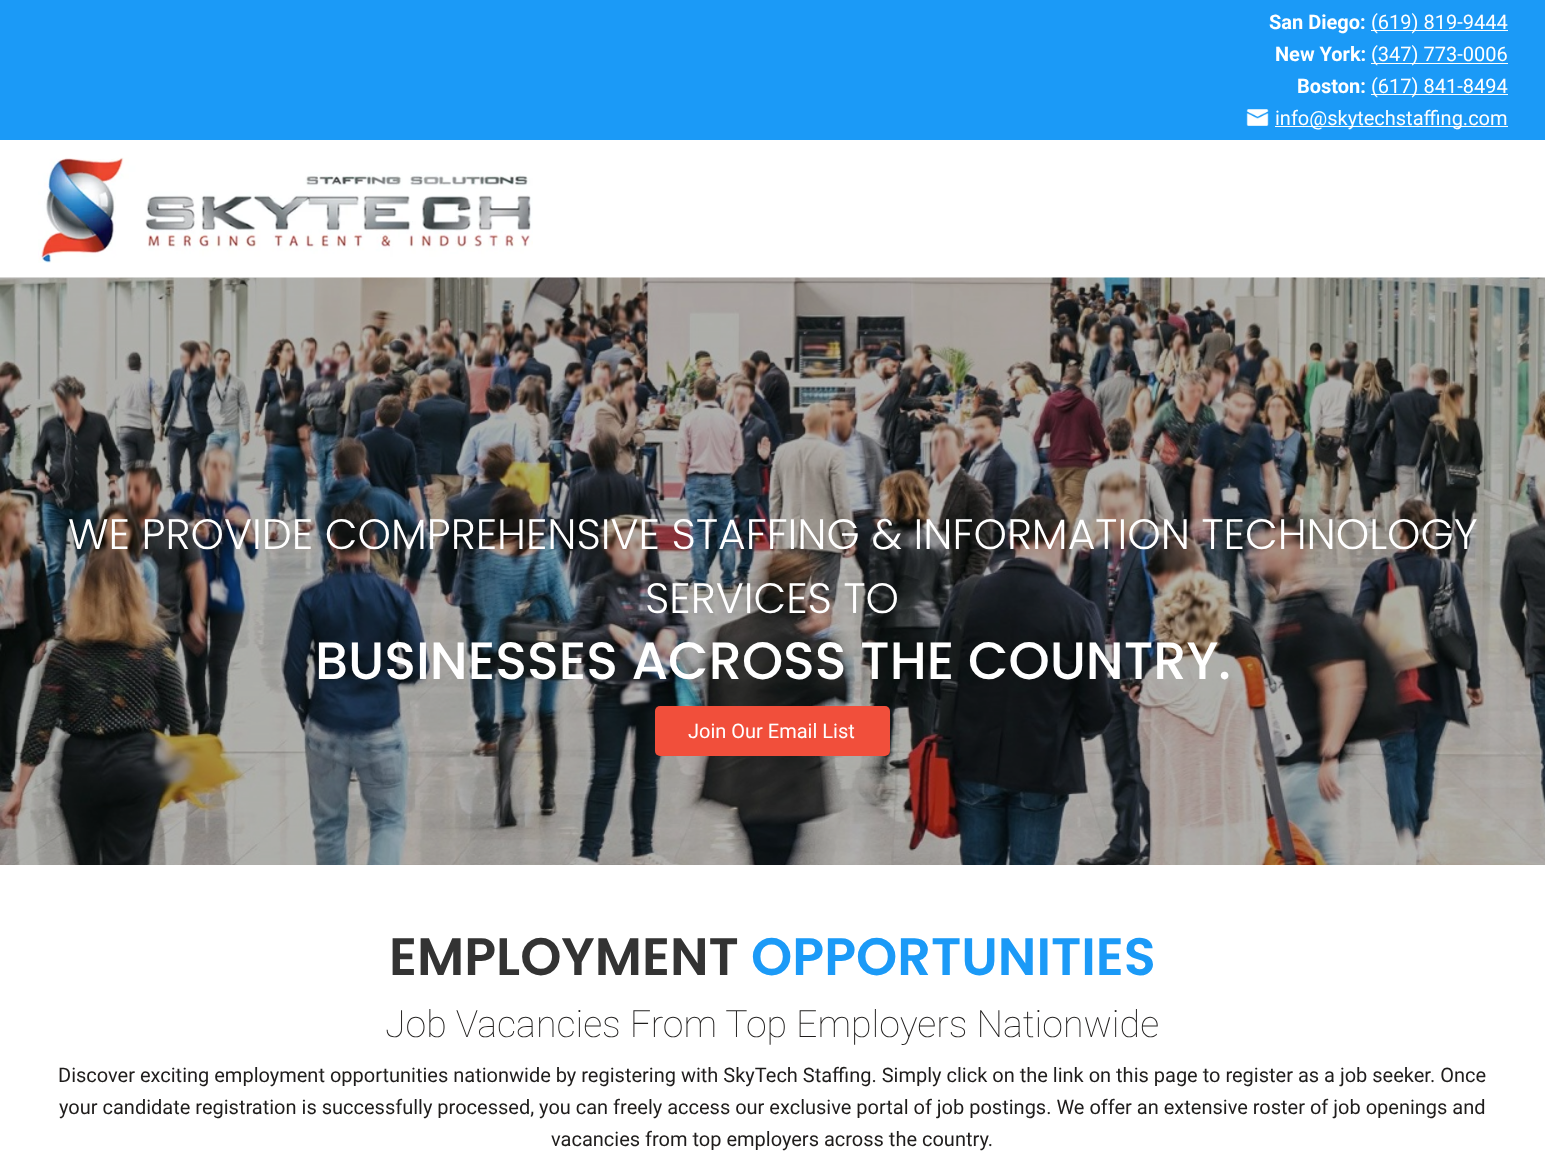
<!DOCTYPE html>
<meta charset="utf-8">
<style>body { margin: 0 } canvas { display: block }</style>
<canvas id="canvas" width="1545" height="1163"></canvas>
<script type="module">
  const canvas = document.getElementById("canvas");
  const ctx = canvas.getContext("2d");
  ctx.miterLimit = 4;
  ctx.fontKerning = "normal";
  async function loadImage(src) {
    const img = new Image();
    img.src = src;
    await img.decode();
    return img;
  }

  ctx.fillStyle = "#ffffff";
  ctx.fillRect(0, 0, 1545, 1163);
  ctx.fillStyle = "#1b9af7";
  ctx.fillRect(0, 0, 1545, 140);
  ctx.font = "bold 20px Roboto";
  ctx.fillStyle = "#ffffff";
  ctx.fillText("San Diego:", 1269, 29);
  ctx.fillRect(1371, 30, 137, 1);
  ctx.font = "20px Roboto";
  ctx.fillText("(619) 819-9444", 1371, 29);
  ctx.font = "bold 20px Roboto";
  ctx.fillText("New York:", 1275, 61);
  ctx.fillRect(1371, 63, 137, 1);
  ctx.font = "20px Roboto";
  ctx.fillText("(347) 773-0006", 1371, 61);
  ctx.font = "bold 20px Roboto";
  ctx.fillText("Boston:", 1297, 93);
  ctx.fillRect(1371, 94, 137, 1);
  ctx.font = "20px Roboto";
  ctx.fillText("(617) 841-8494", 1371, 93);
  ctx.drawImage(await loadImage("img1.png"), 1246, 109, 23, 17);
  ctx.fillRect(1275, 126, 233, 1);
  ctx.fillText("info@skytechstaffing.com", 1275, 125);
  ctx.drawImage(await loadImage("img2.png"), 38, 157, 495, 106);
  ctx.drawImage(await loadImage("img3.png"), 0, 277, 1545, 588);
  ctx.font = "300 42.5px Poppins";
  ctx.fillText("WE PROVIDE COMPREHENSIVE STAFFING & INFORMATION TECHNOLOGY", 68, 549);
  ctx.fillText("SERVICES TO", 645, 613);
  ctx.font = "500 52.5px Poppins";
  ctx.fillText("BUSINESSES ACROSS THE COUNTRY.", 315, 679);
  ctx.fillStyle = "#f14f3b";
  ctx.beginPath();
  ctx.roundRect(655, 706, 235, 50, 5);
  ctx.fill();
  ctx.font = "20px Roboto";
  ctx.fillStyle = "#ffffff";
  ctx.fillText("Join Our Email List", 688, 738);
  ctx.font = "600 52.5px Poppins";
  ctx.fillStyle = "#333333";
  ctx.fillText("EMPLOYMENT", 389, 975);
  ctx.fillStyle = "#1b9af7";
  ctx.fillText("OPPORTUNITIES", 751, 975);
  ctx.font = "100 37.5px Roboto";
  ctx.fillStyle = "#1f1d1c";
  ctx.fillText("Job Vacancies From Top Employers Nationwide", 385, 1037);
  ctx.font = "20px Roboto";
  ctx.fillText("Discover exciting employment opportunities nationwide by registering with SkyTech Staffing. Simply click on the link on this page to register as a job seeker. Once", 58, 1082);
  ctx.fillText("your candidate registration is successfully processed, you can freely access our exclusive portal of job postings. We offer an extensive roster of job openings and", 59, 1114);
  ctx.fillText("vacancies from top employers across the country.", 551, 1146);
</script>
